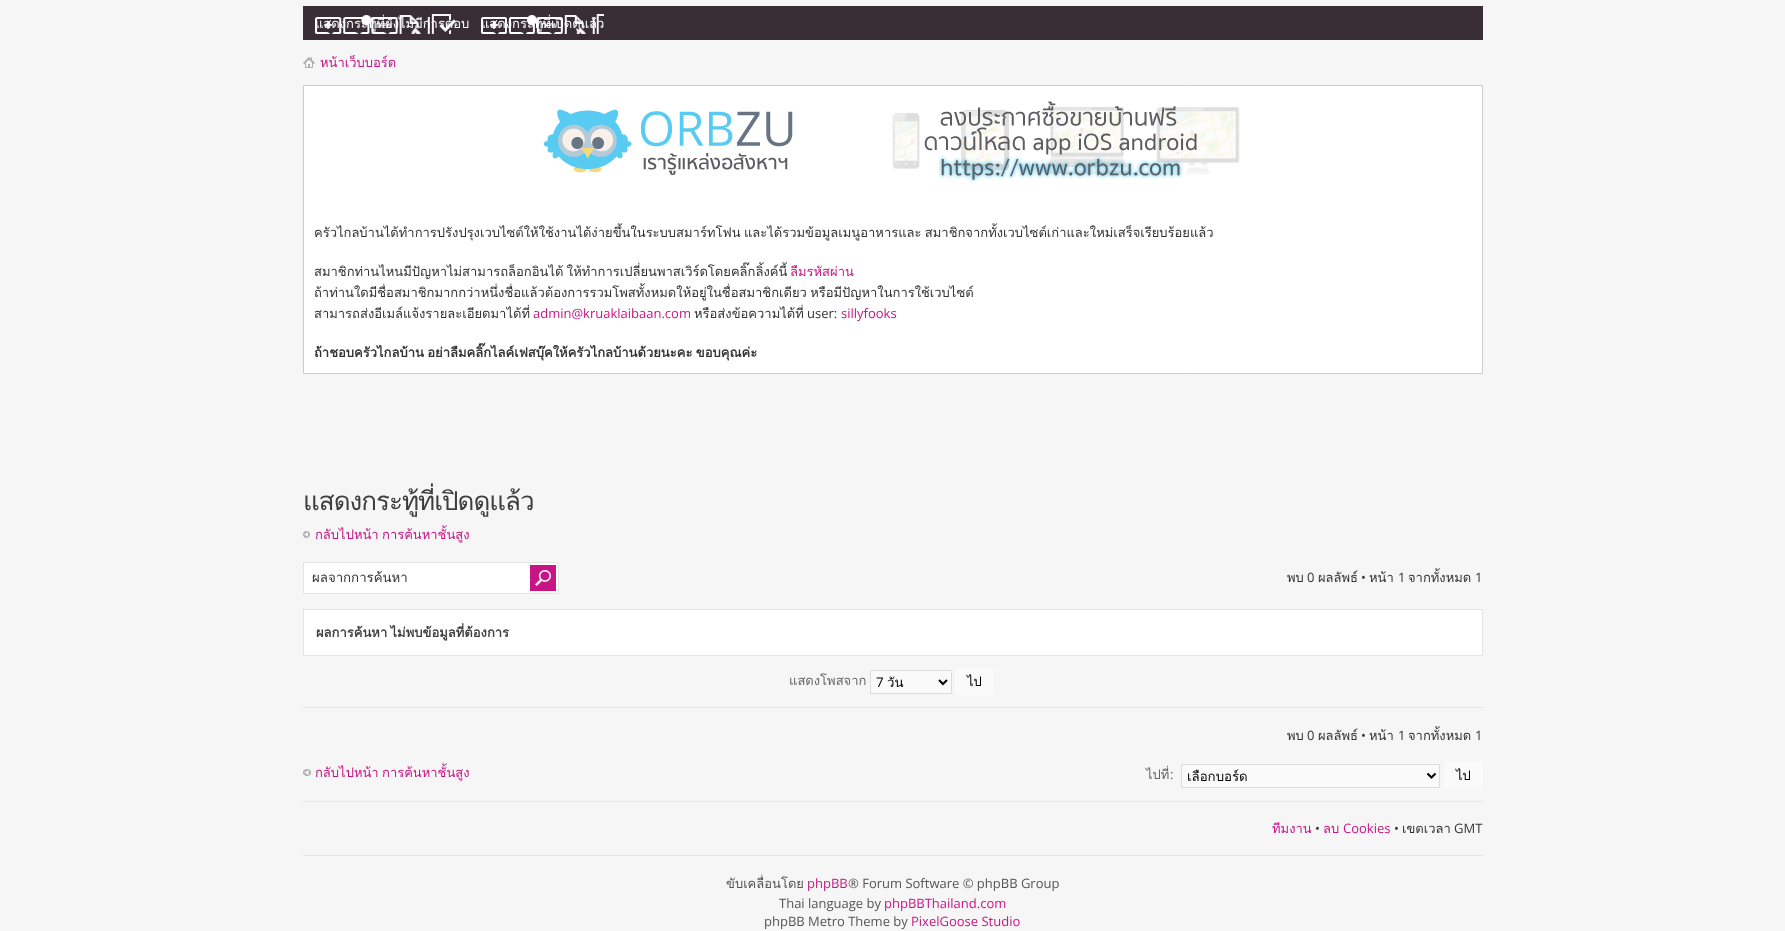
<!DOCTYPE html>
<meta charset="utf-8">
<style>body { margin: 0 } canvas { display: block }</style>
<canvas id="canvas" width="1785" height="931"></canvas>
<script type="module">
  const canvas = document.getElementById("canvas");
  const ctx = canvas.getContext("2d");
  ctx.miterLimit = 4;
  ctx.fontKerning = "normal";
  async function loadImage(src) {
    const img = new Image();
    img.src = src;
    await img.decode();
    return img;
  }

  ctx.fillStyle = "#f6f6f6";
  ctx.fillRect(0, 0, 1785, 931);
  ctx.fillStyle = "#392e35";
  ctx.fillRect(303, 6, 1180, 34);
  ctx.drawImage(await loadImage("img1.png"), 315, 14, 141, 20);
  ctx.font = "13px Loma";
  ctx.fillStyle = "#ffffff";
  ctx.fillText("แสดงกระทู้ที่ยังไม่มีการตอบ", 315, 28);
  ctx.drawImage(await loadImage("img2.png"), 481, 14, 123, 20);
  ctx.fillText("แสดงกระทู้ที่เปิดดูแล้ว", 481, 28);
  ctx.drawImage(await loadImage("img3.png"), 303, 57, 12, 11);
  ctx.fillStyle = "#c71585";
  ctx.fillText("หน้าเว็บบอร์ด", 320, 67);
  ctx.fillStyle = "#ffffff";
  ctx.beginPath();
  ctx.rect(303.5, 85.5, 1179, 288);
  ctx.fill();
  ctx.strokeStyle = "#cccccc";
  ctx.stroke();
  ctx.drawImage(await loadImage("img4.png"), 543, 101, 697, 82);
  ctx.wordSpacing = "-1px";
  ctx.fillStyle = "#333333";
  ctx.fillText("ครัวไกลบ้านได้ทำการปรังปรุงเวบไซต์ให้ใช้งานได้ง่ายขึ้นในระบบสมาร์ทโฟน และได้รวมข้อมูลเมนูอาหารและ สมาชิกจากทั้งเวบไซต์เก่าและใหม่เสร็จเรียบร้อยแล้ว", 314, 237);
  ctx.fillText("สมาชิกท่านไหนมีปัญหาไม่สามารถล็อกอินได้ ให้ทำการเปลี่ยนพาสเวิร์ดโดยคลิ๊กลิ้งค์นี้", 314, 276);
  ctx.wordSpacing = "0px";
  ctx.fillStyle = "#c71585";
  ctx.fillText("ลืมรหัสผ่าน", 790, 276);
  ctx.wordSpacing = "-1px";
  ctx.fillStyle = "#333333";
  ctx.fillText("ถ้าท่านใดมีชื่อสมาชิกมากกว่าหนึ่งชื่อแล้วต้องการรวมโพสทั้งหมดให้อยู่ในชื่อสมาชิกเดียว หรือมีปัญหาในการใช้เวบไซต์", 314, 297);
  ctx.wordSpacing = "0px";
  ctx.fillText("สามารถส่งอีเมล์แจ้งรายละเอียดมาได้ที่", 314, 318);
  ctx.font = "13px Open Sans";
  ctx.fillStyle = "#c71585";
  ctx.fillText("admin@kruaklaibaan.com", 533, 318);
  ctx.font = "13px Loma";
  ctx.fillStyle = "#333333";
  ctx.fillText("หรือส่งข้อความได้ที่", 694, 318);
  ctx.font = "13px Open Sans";
  ctx.fillText("user:", 807, 318);
  ctx.fillStyle = "#c71585";
  ctx.fillText("sillyfooks", 841, 318);
  ctx.wordSpacing = "-1px";
  ctx.font = "bold 13px Loma";
  ctx.fillStyle = "#333333";
  ctx.fillText("ถ้าชอบครัวไกลบ้าน อย่าลืมคลิ๊กไลค์เฟสบุ๊คให้ครัวไกลบ้านด้วยนะคะ ขอบคุณค่ะ", 314, 357);
  ctx.letterSpacing = "-1px";
  ctx.wordSpacing = "0px";
  ctx.font = "26px Loma";
  ctx.fillStyle = "#3e3e3e";
  ctx.fillText("แสดงกระทู้ที่เปิดดูแล้ว", 303, 510);
  ctx.drawImage(await loadImage("img5.png"), 303, 531, 7, 7);
  ctx.letterSpacing = "0px";
  ctx.wordSpacing = "-1px";
  ctx.font = "13px Loma";
  ctx.fillStyle = "#c71585";
  ctx.fillText("กลับไปหน้า การค้นหาชั้นสูง", 315, 539);
  ctx.fillStyle = "#ffffff";
  ctx.beginPath();
  ctx.rect(303.5, 562.5, 255, 31);
  ctx.fill();
  ctx.strokeStyle = "#e4e4e4";
  ctx.stroke();
  ctx.wordSpacing = "0px";
  ctx.font = "13.25px Loma";
  ctx.fillStyle = "#333333";
  ctx.fillText("ผลจากการค้นหา", 312, 582);
  ctx.drawImage(await loadImage("img6.png"), 530, 565, 26, 26);
  ctx.font = "13px Loma";
  ctx.fillText("พบ", 1287, 582);
  ctx.font = "13px Open Sans";
  ctx.fillText("0", 1307, 582);
  ctx.font = "13px Loma";
  ctx.fillText("ผลลัพธ์", 1318, 582);
  ctx.font = "13px Open Sans";
  ctx.fillText("•", 1361, 582);
  ctx.font = "13px Loma";
  ctx.fillText("หน้า", 1369, 582);
  ctx.font = "13px Open Sans";
  ctx.fillText("1", 1398, 582);
  ctx.font = "13px Loma";
  ctx.fillText("จากทั้งหมด", 1408, 582);
  ctx.font = "13px Open Sans";
  ctx.fillText("1", 1475, 582);
  ctx.fillStyle = "#ffffff";
  ctx.beginPath();
  ctx.rect(303.5, 609.5, 1179, 46);
  ctx.fill();
  ctx.stroke();
  ctx.wordSpacing = "-1px";
  ctx.font = "bold 13px Loma";
  ctx.fillStyle = "#3e3e3e";
  ctx.fillText("ผลการค้นหา ไม่พบข้อมูลที่ต้องการ", 316, 637);
  ctx.wordSpacing = "0px";
  ctx.font = "13px Loma";
  ctx.fillStyle = "#676767";
  ctx.fillText("แสดงโพสจาก", 789, 685);
  ctx.fillStyle = "#fafafa";
  ctx.beginPath();
  ctx.rect(870.5, 670.5, 81, 23);
  ctx.fill();
  ctx.strokeStyle = "#dcdcdc";
  ctx.stroke();
  ctx.beginPath();
  ctx.moveTo(939, 680);
  ctx.lineTo(943, 684);
  ctx.lineTo(947, 680);
  ctx.strokeStyle = "#000000";
  ctx.lineWidth = 2;
  ctx.stroke();
  ctx.font = "13.25px Open Sans";
  ctx.fillStyle = "#000000";
  ctx.fillText("7", 876, 687);
  ctx.font = "13.25px Loma";
  ctx.fillText("วัน", 887, 687);
  ctx.fillStyle = "#fafafa";
  ctx.fillRect(955, 668, 39, 27);
  ctx.font = "13px Loma";
  ctx.fillStyle = "#000000";
  ctx.fillText("ไป", 967, 686);
  ctx.fillStyle = "#e4e4e4";
  ctx.fillRect(303, 707, 1180, 1);
  ctx.fillStyle = "#333333";
  ctx.fillText("พบ", 1287, 740);
  ctx.font = "13px Open Sans";
  ctx.fillText("0", 1307, 740);
  ctx.font = "13px Loma";
  ctx.fillText("ผลลัพธ์", 1318, 740);
  ctx.font = "13px Open Sans";
  ctx.fillText("•", 1361, 740);
  ctx.font = "13px Loma";
  ctx.fillText("หน้า", 1369, 740);
  ctx.font = "13px Open Sans";
  ctx.fillText("1", 1398, 740);
  ctx.font = "13px Loma";
  ctx.fillText("จากทั้งหมด", 1408, 740);
  ctx.font = "13px Open Sans";
  ctx.fillText("1", 1475, 740);
  ctx.drawImage(await loadImage("img7.png"), 303, 769, 8, 7);
  ctx.wordSpacing = "-1px";
  ctx.font = "13px Loma";
  ctx.fillStyle = "#c71585";
  ctx.fillText("กลับไปหน้า การค้นหาชั้นสูง", 315, 777);
  ctx.wordSpacing = "0px";
  ctx.fillStyle = "#676767";
  ctx.fillText("ไปที่", 1146, 779);
  ctx.font = "13px Open Sans";
  ctx.fillText(":", 1170, 779);
  ctx.fillStyle = "#fafafa";
  ctx.beginPath();
  ctx.rect(1181.5, 764.5, 258, 23);
  ctx.fill();
  ctx.strokeStyle = "#dcdcdc";
  ctx.lineWidth = 1;
  ctx.stroke();
  ctx.beginPath();
  ctx.moveTo(1427.5, 773.5);
  ctx.lineTo(1431.5, 777.5);
  ctx.lineTo(1435.5, 773.5);
  ctx.strokeStyle = "#000000";
  ctx.lineWidth = 2;
  ctx.stroke();
  ctx.save();
  ctx.beginPath();
  ctx.rect(1187, 766, 235, 20);
  ctx.clip();
  ctx.font = "13.25px Loma";
  ctx.fillStyle = "#000000";
  ctx.fillText("เลือกบอร์ด", 1187, 781);
  ctx.restore();
  ctx.fillRect(1444, 762, 39, 27);
  ctx.font = "13px Loma";
  ctx.fillStyle = "#000000";
  ctx.fillText("ไป", 1456, 780);
  ctx.fillStyle = "#e4e4e4";
  ctx.fillRect(303, 801, 1180, 1);
  ctx.fillRect(303, 855, 1180, 1);
  ctx.fillStyle = "#c71585";
  ctx.fillText("ทีมงาน", 1272, 833);
  ctx.font = "13px Open Sans";
  ctx.fillStyle = "#333333";
  ctx.fillText("•", 1315, 833);
  ctx.font = "13px Loma";
  ctx.fillStyle = "#c71585";
  ctx.fillText("ลบ", 1323, 833);
  ctx.font = "13px Open Sans";
  ctx.fillText("Cookies", 1343, 833);
  ctx.fillStyle = "#333333";
  ctx.fillText("•", 1394, 833);
  ctx.font = "13px Loma";
  ctx.fillText("เขตเวลา", 1402, 833);
  ctx.font = "13px Open Sans";
  ctx.fillText("GMT", 1454, 833);
  ctx.font = "13px Loma";
  ctx.fillStyle = "#555555";
  ctx.fillText("ขับเคลื่อนโดย", 726, 888);
  ctx.font = "13px Open Sans";
  ctx.fillStyle = "#c71585";
  ctx.fillText("phpBB", 807, 888);
  ctx.fillStyle = "#555555";
  ctx.fillText("® Forum Software © phpBB Group", 848, 888);
  ctx.fillText("Thai language by", 779, 908);
  ctx.fillStyle = "#c71585";
  ctx.fillText("phpBBThailand.com", 884, 908);
  ctx.fillStyle = "#555555";
  ctx.fillText("phpBB Metro Theme by", 764, 926);
  ctx.fillStyle = "#c71585";
  ctx.fillText("PixelGoose Studio", 911, 926);
</script>
